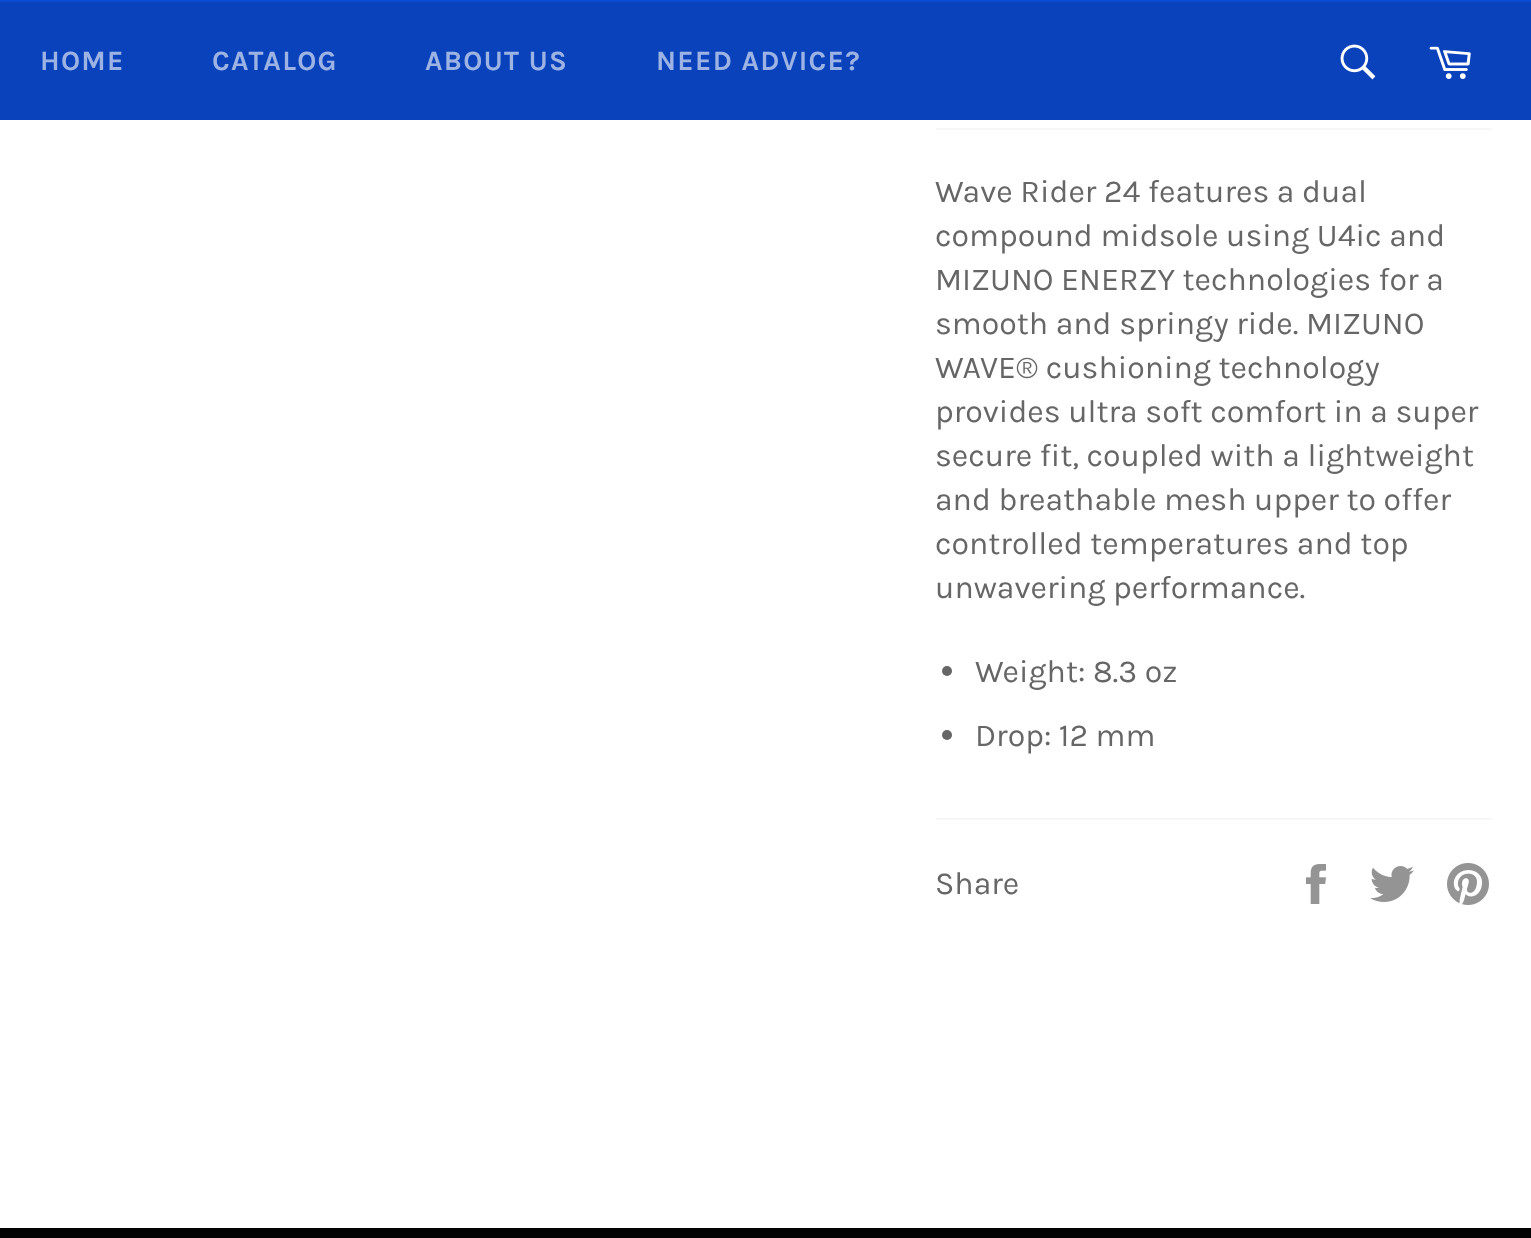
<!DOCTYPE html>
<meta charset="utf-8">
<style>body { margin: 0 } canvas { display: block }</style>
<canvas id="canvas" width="1531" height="1238"></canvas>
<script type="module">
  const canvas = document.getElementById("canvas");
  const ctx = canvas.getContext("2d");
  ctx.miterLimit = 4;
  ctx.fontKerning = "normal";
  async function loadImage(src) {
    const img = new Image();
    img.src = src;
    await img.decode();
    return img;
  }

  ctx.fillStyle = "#ffffff";
  ctx.fillRect(0, 0, 1531, 1238);
  ctx.fillStyle = "#0942bb";
  ctx.fillRect(0, 2, 1531, 118);
  ctx.fillStyle = "#0a4bd3";
  ctx.fillRect(0, 0, 1531, 2);
  ctx.letterSpacing = "1.25px";
  ctx.font = "bold 28px Karla";
  ctx.fillStyle = "#9db3e4";
  ctx.fillText("HOME", 40, 70);
  ctx.fillText("CATALOG", 212, 70);
  ctx.fillText("ABOUT US", 425, 70);
  ctx.fillText("NEED ADVICE?", 656, 70);
  ctx.drawImage(await loadImage("img1.png"), 1340, 44, 36, 36);
  ctx.drawImage(await loadImage("img2.png"), 1429, 46, 42, 33);
  ctx.fillStyle = "#f7f7f7";
  ctx.fillRect(936, 128, 556, 2);
  ctx.letterSpacing = "0px";
  ctx.font = "32px Karla";
  ctx.fillStyle = "#666666";
  ctx.fillText("Wave Rider 24 features a dual", 935, 202);
  ctx.fillText("compound midsole using U4ic and", 935, 246);
  ctx.fillText("MIZUNO ENERZY technologies for a", 935, 290);
  ctx.fillText("smooth and springy ride. MIZUNO", 935, 334);
  ctx.fillText("WAVE® cushioning technology", 935, 378);
  ctx.fillText("provides ultra soft comfort in a super", 935, 422);
  ctx.fillText("secure fit, coupled with a lightweight", 935, 466);
  ctx.fillText("and breathable mesh upper to offer", 935, 510);
  ctx.fillText("controlled temperatures and top", 935, 554);
  ctx.fillText("unwavering performance.", 935, 598);
  ctx.beginPath();
  ctx.arc(947, 671, 5, 0, Math.PI * 2);
  ctx.fill();
  ctx.fillText("Weight: 8.3 oz", 975, 682);
  ctx.beginPath();
  ctx.arc(947, 735, 5, 0, Math.PI * 2);
  ctx.fill();
  ctx.fillText("Drop: 12 mm", 975, 746);
  ctx.fillStyle = "#f7f7f7";
  ctx.fillRect(936, 818, 556, 2);
  ctx.fillStyle = "#666666";
  ctx.fillText("Share", 935, 894);
  ctx.drawImage(await loadImage("img3.png"), 1306, 864, 20, 40);
  ctx.drawImage(await loadImage("img4.png"), 1370, 866, 44, 36);
  ctx.drawImage(await loadImage("img5.png"), 1447, 863, 42, 42);
  ctx.fillStyle = "#030303";
  ctx.fillRect(0, 1228, 1531, 10);
</script>
